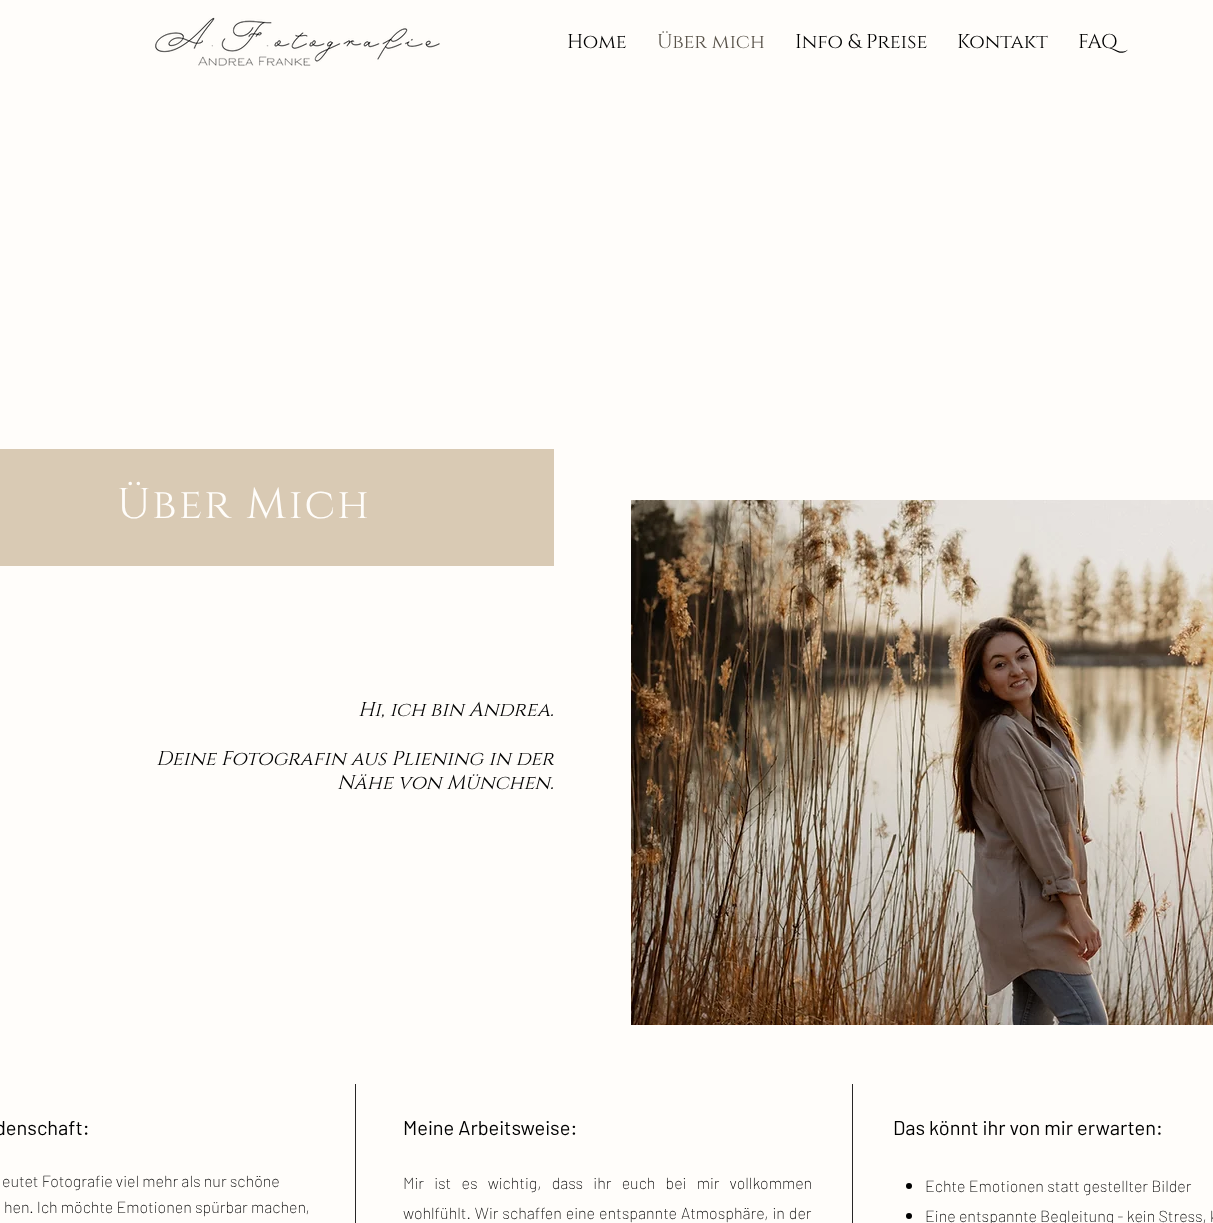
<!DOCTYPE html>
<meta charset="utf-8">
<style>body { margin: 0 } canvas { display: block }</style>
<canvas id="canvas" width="1213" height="1223"></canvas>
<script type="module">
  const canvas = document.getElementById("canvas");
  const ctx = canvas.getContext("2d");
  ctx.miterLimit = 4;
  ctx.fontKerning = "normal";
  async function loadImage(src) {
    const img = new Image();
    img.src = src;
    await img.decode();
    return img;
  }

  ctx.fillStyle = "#fffdfa";
  ctx.fillRect(0, 0, 1213, 1223);
  ctx.drawImage(await loadImage("img1.png"), 155, 17, 285, 49);
  ctx.font = "20px Cinzel";
  ctx.fillStyle = "#000000";
  ctx.fillText("Home", 567, 48);
  ctx.fillStyle = "#59534a";
  ctx.fillText("Über mich", 657, 48);
  ctx.fillStyle = "#000000";
  ctx.fillText("Info & Preise", 795, 48);
  ctx.fillText("Kontakt", 957, 48);
  ctx.fillText("FAQ", 1078, 48);
  ctx.fillStyle = "#d9cab4";
  ctx.fillRect(0, 449, 554, 117);
  ctx.letterSpacing = "2.25px";
  ctx.font = "43px Cinzel";
  ctx.fillStyle = "#fffdfa";
  ctx.fillText("Über Mich", 117, 518);
  ctx.drawImage(await loadImage("img2.png"), 631, 500, 582, 525);
  ctx.letterSpacing = "0px";
  ctx.font = "italic 20px Cinzel";
  ctx.fillStyle = "#000000";
  ctx.fillText("Hi, ich bin Andrea.", 358, 716);
  ctx.fillText("Deine Fotografin aus Pliening in der", 156, 765);
  ctx.fillText("Nähe von München.", 337, 789);
  ctx.font = "20px Barlow";
  ctx.fillText("denschaft:", -5, 1135);
  ctx.font = "200 16px Barlow";
  ctx.fillText("eutet Fotografie viel mehr als nur schöne", 2, 1187);
  ctx.fillText("hen. Ich möchte Emotionen spürbar machen,", 4, 1213);
  ctx.fillStyle = "#282626";
  ctx.fillRect(355, 1084, 1, 139);
  ctx.font = "20px Barlow";
  ctx.fillStyle = "#000000";
  ctx.fillText("Meine Arbeitsweise:", 403, 1135);
  ctx.wordSpacing = "7px";
  ctx.font = "200 16px Barlow";
  ctx.fillText("Mir ist es wichtig, dass ihr euch bei mir vollkommen", 403, 1189);
  ctx.wordSpacing = "0.75px";
  ctx.fillText("wohlfühlt. Wir schaffen eine entspannte Atmosphäre, in der", 403, 1219);
  ctx.fillStyle = "#282626";
  ctx.fillRect(852, 1084, 1, 139);
  ctx.wordSpacing = "0px";
  ctx.font = "20px Barlow";
  ctx.fillStyle = "#000000";
  ctx.fillText("Das könnt ihr von mir erwarten:", 893, 1135);
  ctx.beginPath();
  ctx.arc(909, 1186, 3, 0, Math.PI * 2);
  ctx.fill();
  ctx.font = "200 16px Barlow";
  ctx.fillText("Echte Emotionen statt gestellter Bilder", 925, 1192);
  ctx.beginPath();
  ctx.arc(909, 1216, 3, 0, Math.PI * 2);
  ctx.fill();
  ctx.fillText("Eine entspannte Begleitung - kein Stress, k", 925, 1222);
</script>
